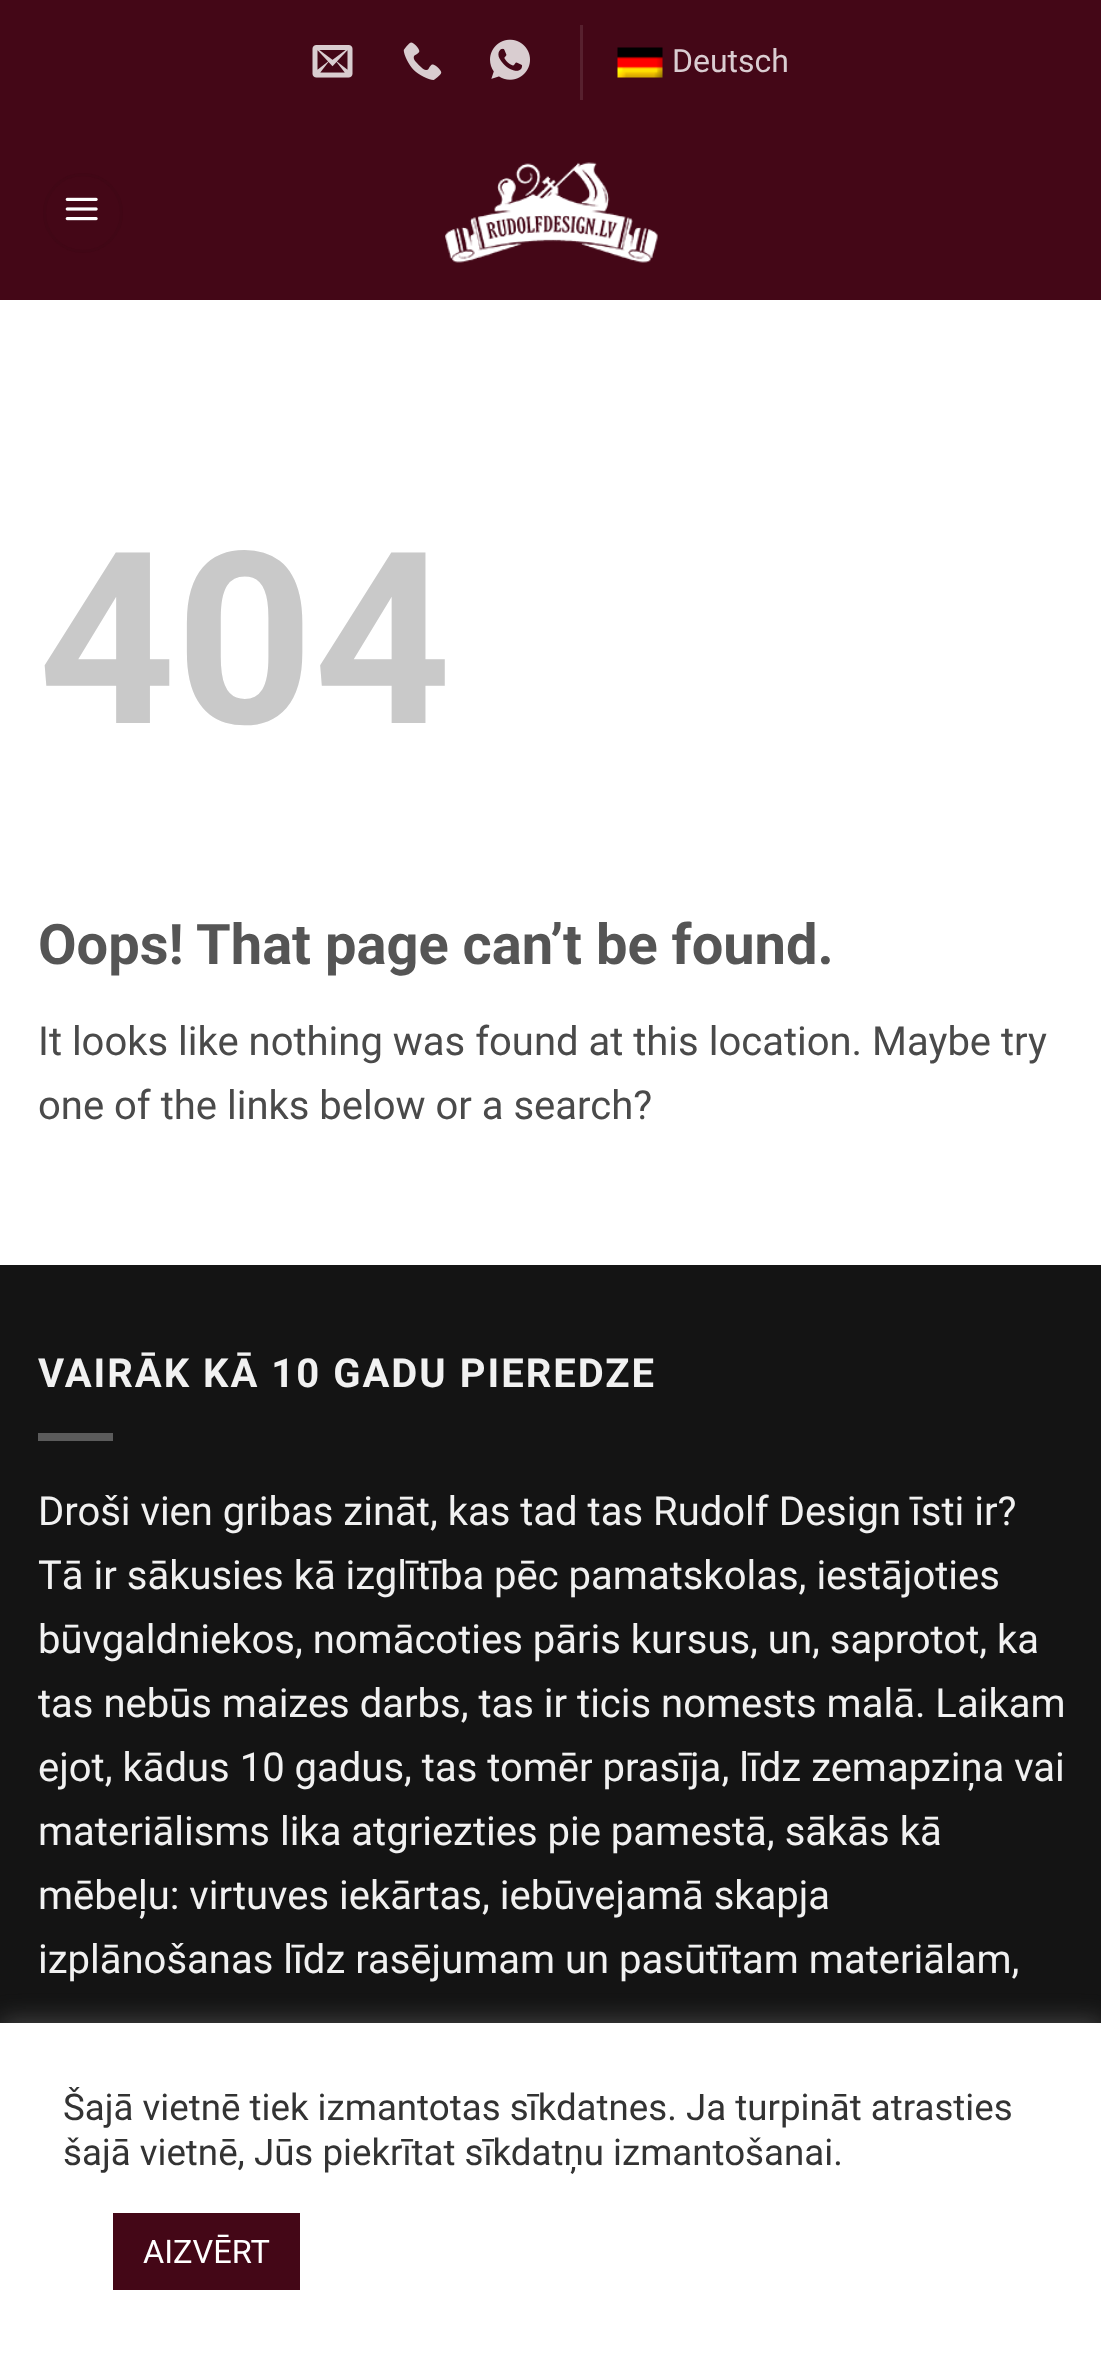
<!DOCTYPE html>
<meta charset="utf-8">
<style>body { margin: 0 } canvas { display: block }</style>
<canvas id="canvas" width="1101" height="2363"></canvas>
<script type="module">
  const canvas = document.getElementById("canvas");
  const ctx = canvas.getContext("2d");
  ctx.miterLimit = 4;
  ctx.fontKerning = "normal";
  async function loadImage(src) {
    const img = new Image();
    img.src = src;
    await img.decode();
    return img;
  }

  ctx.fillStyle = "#ffffff";
  ctx.fillRect(0, 0, 1101, 2363);
  ctx.fillStyle = "#440717";
  ctx.fillRect(0, 0, 1101, 300);
  ctx.drawImage(await loadImage("img1.png"), 312, 45, 41, 33);
  ctx.drawImage(await loadImage("img2.png"), 403, 42, 39, 38);
  ctx.drawImage(await loadImage("img3.png"), 490, 39, 40, 41);
  ctx.fillStyle = "#57202e";
  ctx.fillRect(580, 25, 3, 75);
  ctx.drawImage(await loadImage("img4.png"), 617, 47, 46, 31);
  ctx.font = "32px Roboto";
  ctx.fillStyle = "#dacdd1";
  ctx.fillText("Deutsch", 672, 72);
  ctx.beginPath();
  ctx.arc(83, 213, 38.5, 0, Math.PI * 2);
  ctx.strokeStyle = "#410716";
  ctx.lineWidth = 3;
  ctx.stroke();
  ctx.drawImage(await loadImage("img5.png"), 65, 197, 33, 24);
  ctx.drawImage(await loadImage("img6.png"), 445, 162, 213, 101);
  ctx.font = "bold 240px Roboto";
  ctx.fillStyle = "#c9c9c9";
  ctx.fillText("404", 38, 723);
  ctx.font = "bold 56px Roboto";
  ctx.fillStyle = "#555555";
  ctx.fillText("Oops! That page can’t be found.", 38, 964);
  ctx.font = "40px Roboto";
  ctx.fillStyle = "#4a4a4a";
  ctx.fillText("It looks like nothing was found at this location. Maybe try", 38, 1055);
  ctx.fillText("one of the links below or a search?", 38, 1119);
  ctx.fillStyle = "#141414";
  ctx.fillRect(0, 1265, 1101, 758);
  ctx.letterSpacing = "2px";
  ctx.font = "bold 40px Roboto";
  ctx.fillStyle = "#f1f1f1";
  ctx.fillText("VAIRĀK KĀ 10 GADU PIEREDZE", 38, 1387);
  ctx.fillStyle = "#5b5b5b";
  ctx.fillRect(38, 1433, 75, 8);
  ctx.letterSpacing = "0px";
  ctx.font = "40px Roboto";
  ctx.fillStyle = "#f1f1f1";
  ctx.fillText("Droši vien gribas zināt, kas tad tas Rudolf Design īsti ir?", 38, 1525);
  ctx.fillText("Tā ir sākusies kā izglītība pēc pamatskolas, iestājoties", 38, 1589);
  ctx.fillText("būvgaldniekos, nomācoties pāris kursus, un, saprotot, ka", 38, 1653);
  ctx.fillText("tas nebūs maizes darbs, tas ir ticis nomests malā. Laikam", 38, 1717);
  ctx.fillText("ejot, kādus 10 gadus, tas tomēr prasīja, līdz zemapziņa vai", 38, 1781);
  ctx.fillText("materiālisms lika atgriezties pie pamestā, sākās kā", 38, 1845);
  ctx.fillText("mēbeļu: virtuves iekārtas, iebūvejamā skapja", 38, 1909);
  ctx.fillText("izplānošanas līdz rasējumam un pasūtītam materiālam,", 38, 1973);
  ctx.fillStyle = "rgba(172, 171, 171, 0.3)";
  ctx.filter = "blur(12.5px)";
  ctx.beginPath();
  ctx.rect(0, 2020, 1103, 343);
  ctx.fill();
  ctx.filter = "none";
  ctx.fillStyle = "#ffffff";
  ctx.fillRect(0, 2023, 1101, 340);
  ctx.font = "36.7px Roboto";
  ctx.fillStyle = "#333333";
  ctx.fillText("Šajā vietnē tiek izmantotas sīkdatnes. Ja turpināt atrasties", 63, 2120);
  ctx.fillText("šajā vietnē, Jūs piekrītat sīkdatņu izmantošanai.", 63, 2165);
  ctx.fillStyle = "#440717";
  ctx.fillRect(113, 2213, 187, 77);
  ctx.font = "32.5px Roboto";
  ctx.fillStyle = "#ffffff";
  ctx.fillText("AIZVĒRT", 143, 2263);
</script>
